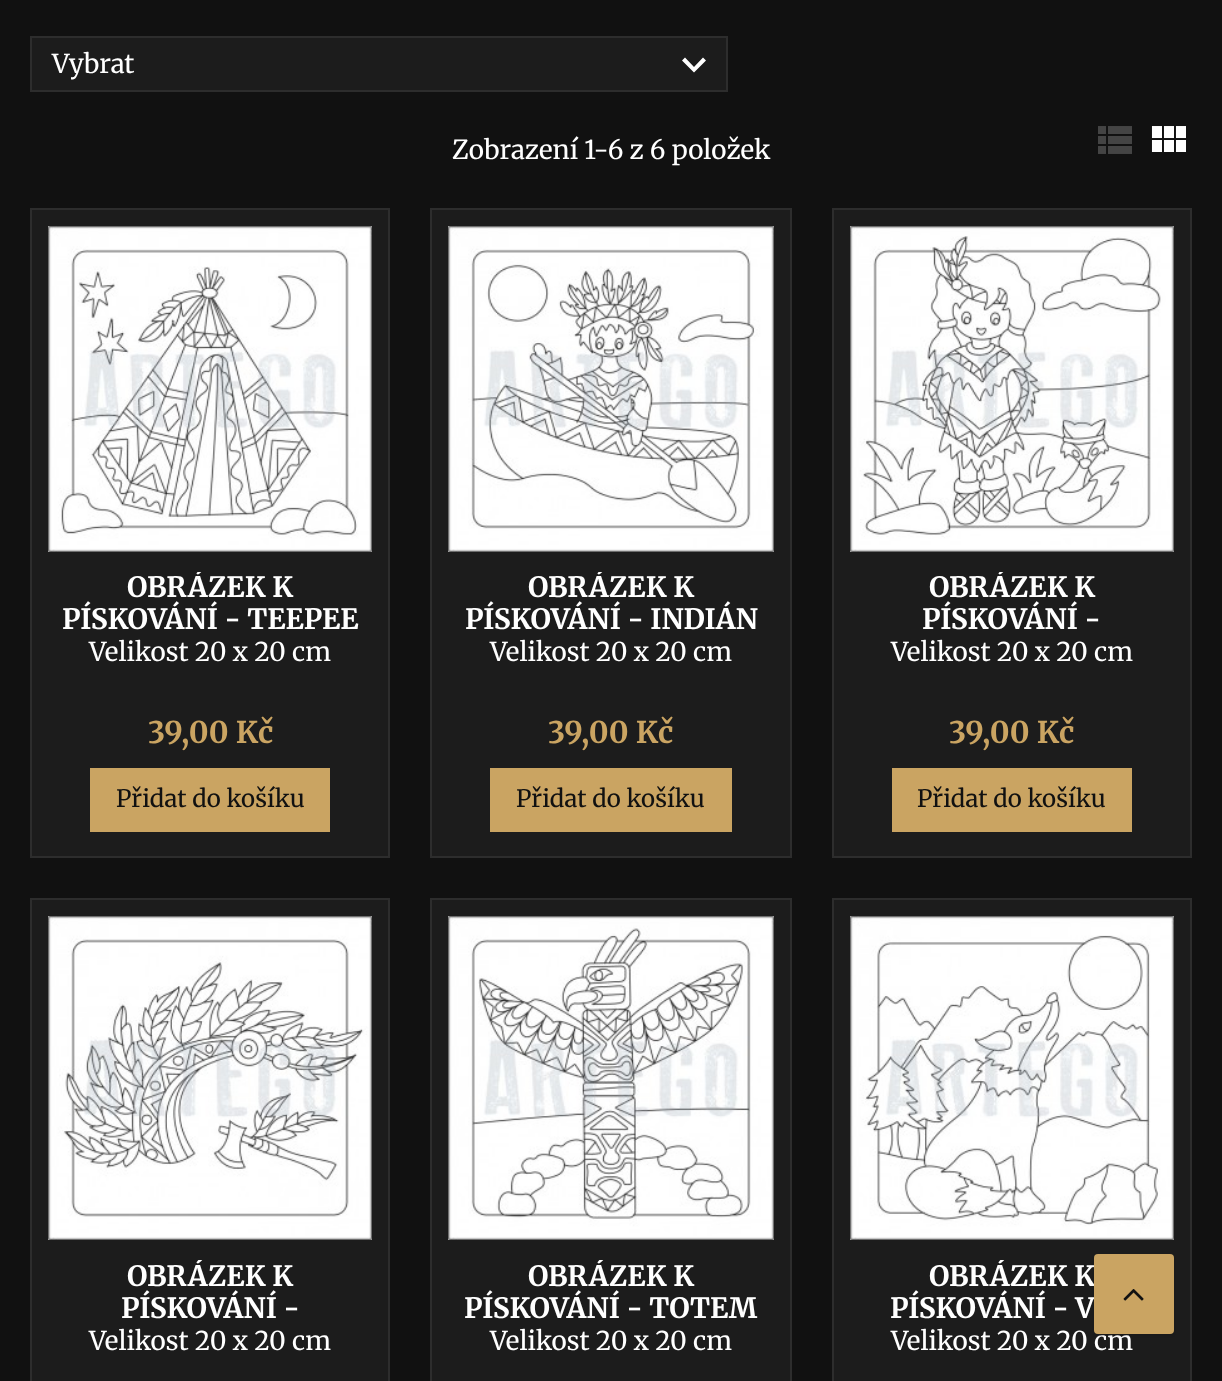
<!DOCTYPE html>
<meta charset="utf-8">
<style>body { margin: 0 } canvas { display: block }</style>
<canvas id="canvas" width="1222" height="1381"></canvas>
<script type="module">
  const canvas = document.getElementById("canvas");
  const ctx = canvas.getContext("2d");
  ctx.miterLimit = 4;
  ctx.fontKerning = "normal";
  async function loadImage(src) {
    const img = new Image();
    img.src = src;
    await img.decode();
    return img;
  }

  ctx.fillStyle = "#111111";
  ctx.fillRect(0, 0, 1222, 1381);
  ctx.fillStyle = "#1c1c1c";
  ctx.beginPath();
  ctx.rect(31, 37, 696, 54);
  ctx.fill();
  ctx.strokeStyle = "#2d2d2d";
  ctx.lineWidth = 2;
  ctx.stroke();
  ctx.font = "26px Merriweather";
  ctx.fillStyle = "#ffffff";
  ctx.fillText("Vybrat", 52, 73);
  ctx.beginPath();
  ctx.moveTo(685, 57.5);
  ctx.lineTo(694, 67);
  ctx.lineTo(703, 57.5);
  ctx.lineTo(706, 60.5);
  ctx.lineTo(694, 72.5);
  ctx.lineTo(682, 60.5);
  ctx.closePath();
  ctx.fill();
  ctx.fillText("Zobrazení 1-6 z 6 položek", 452, 159);
  ctx.drawImage(await loadImage("img1.png"), 1098, 126, 34, 28);
  ctx.drawImage(await loadImage("img2.png"), 1151, 126, 35, 26);
  ctx.fillStyle = "#1c1c1c";
  ctx.beginPath();
  ctx.rect(31, 209, 358, 648);
  ctx.fill();
  ctx.stroke();
  ctx.drawImage(await loadImage("img3.png"), 48, 226, 324, 326);
  ctx.save();
  ctx.beginPath();
  ctx.rect(48, 572, 324, 64);
  ctx.clip();
  ctx.font = "bold 28px Merriweather";
  ctx.fillStyle = "#ffffff";
  ctx.fillText("OBRÁZEK K", 127, 597);
  ctx.restore();
  ctx.font = "bold 28px Merriweather";
  ctx.fillStyle = "#ffffff";
  ctx.fillText("PÍSKOVÁNÍ - TEEPEE", 62, 629);
  ctx.font = "26px Merriweather";
  ctx.fillText("Velikost 20 x 20 cm", 89, 661);
  ctx.font = "bold 30px Merriweather";
  ctx.fillStyle = "#caa462";
  ctx.fillText("39,00 Kč", 148, 743);
  ctx.fillRect(90, 768, 240, 64);
  ctx.font = "24px Merriweather";
  ctx.fillStyle = "#111111";
  ctx.fillText("Přidat do košíku", 116, 807);
  ctx.fillStyle = "#1c1c1c";
  ctx.beginPath();
  ctx.rect(431, 209, 360, 648);
  ctx.fill();
  ctx.stroke();
  ctx.drawImage(await loadImage("img4.png"), 448, 226, 326, 326);
  ctx.save();
  ctx.beginPath();
  ctx.rect(448, 572, 326, 64);
  ctx.clip();
  ctx.font = "bold 28px Merriweather";
  ctx.fillStyle = "#ffffff";
  ctx.fillText("OBRÁZEK K", 528, 597);
  ctx.restore();
  ctx.font = "bold 28px Merriweather";
  ctx.fillStyle = "#ffffff";
  ctx.fillText("PÍSKOVÁNÍ - INDIÁN", 465, 629);
  ctx.font = "26px Merriweather";
  ctx.fillText("Velikost 20 x 20 cm", 490, 661);
  ctx.font = "bold 30px Merriweather";
  ctx.fillStyle = "#caa462";
  ctx.fillText("39,00 Kč", 548, 743);
  ctx.fillRect(490, 768, 242, 64);
  ctx.font = "24px Merriweather";
  ctx.fillStyle = "#111111";
  ctx.fillText("Přidat do košíku", 516, 807);
  ctx.fillStyle = "#1c1c1c";
  ctx.beginPath();
  ctx.rect(833, 209, 358, 648);
  ctx.fill();
  ctx.stroke();
  ctx.drawImage(await loadImage("img5.png"), 850, 226, 324, 326);
  ctx.save();
  ctx.beginPath();
  ctx.rect(850, 572, 324, 64);
  ctx.clip();
  ctx.font = "bold 28px Merriweather";
  ctx.fillStyle = "#ffffff";
  ctx.fillText("OBRÁZEK K", 929, 597);
  ctx.restore();
  ctx.font = "bold 28px Merriweather";
  ctx.fillStyle = "#ffffff";
  ctx.fillText("PÍSKOVÁNÍ -", 922, 629);
  ctx.font = "26px Merriweather";
  ctx.fillText("Velikost 20 x 20 cm", 891, 661);
  ctx.font = "bold 30px Merriweather";
  ctx.fillStyle = "#caa462";
  ctx.fillText("39,00 Kč", 949, 743);
  ctx.fillRect(892, 768, 240, 64);
  ctx.font = "24px Merriweather";
  ctx.fillStyle = "#111111";
  ctx.fillText("Přidat do košíku", 917, 807);
  ctx.fillStyle = "#1c1c1c";
  ctx.beginPath();
  ctx.rect(31, 899, 358, 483);
  ctx.fill();
  ctx.stroke();
  ctx.drawImage(await loadImage("img6.png"), 48, 916, 324, 324);
  ctx.save();
  ctx.beginPath();
  ctx.rect(48, 1260, 324, 64);
  ctx.clip();
  ctx.font = "bold 28px Merriweather";
  ctx.fillStyle = "#ffffff";
  ctx.fillText("OBRÁZEK K", 127, 1286);
  ctx.restore();
  ctx.font = "bold 28px Merriweather";
  ctx.fillStyle = "#ffffff";
  ctx.fillText("PÍSKOVÁNÍ -", 121, 1318);
  ctx.font = "26px Merriweather";
  ctx.fillText("Velikost 20 x 20 cm", 89, 1350);
  ctx.fillStyle = "#1c1c1c";
  ctx.beginPath();
  ctx.rect(431, 899, 360, 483);
  ctx.fill();
  ctx.stroke();
  ctx.drawImage(await loadImage("img7.png"), 448, 916, 326, 324);
  ctx.save();
  ctx.beginPath();
  ctx.rect(448, 1260, 326, 64);
  ctx.clip();
  ctx.font = "bold 28px Merriweather";
  ctx.fillStyle = "#ffffff";
  ctx.fillText("OBRÁZEK K", 528, 1286);
  ctx.restore();
  ctx.font = "bold 28px Merriweather";
  ctx.fillStyle = "#ffffff";
  ctx.fillText("PÍSKOVÁNÍ - TOTEM", 464, 1318);
  ctx.font = "26px Merriweather";
  ctx.fillText("Velikost 20 x 20 cm", 490, 1350);
  ctx.fillStyle = "#1c1c1c";
  ctx.beginPath();
  ctx.rect(833, 899, 358, 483);
  ctx.fill();
  ctx.stroke();
  ctx.drawImage(await loadImage("img8.png"), 850, 916, 324, 324);
  ctx.save();
  ctx.beginPath();
  ctx.rect(850, 1260, 324, 64);
  ctx.clip();
  ctx.font = "bold 28px Merriweather";
  ctx.fillStyle = "#ffffff";
  ctx.fillText("OBRÁZEK K", 929, 1286);
  ctx.restore();
  ctx.font = "bold 28px Merriweather";
  ctx.fillStyle = "#ffffff";
  ctx.fillText("PÍSKOVÁNÍ - V", 890, 1318);
  ctx.font = "26px Merriweather";
  ctx.fillText("Velikost 20 x 20 cm", 891, 1350);
  ctx.fillStyle = "rgba(0, 0, 0, 0.1)";
  ctx.filter = "blur(1px)";
  ctx.beginPath();
  ctx.roundRect(1094, 1256, 80, 80, 4);
  ctx.fill();
  ctx.filter = "none";
  ctx.fillStyle = "#caa462";
  ctx.beginPath();
  ctx.roundRect(1094, 1254, 80, 80, 4);
  ctx.fill();
  ctx.drawImage(await loadImage("img9.png"), 1123, 1289, 21, 12);
</script>
